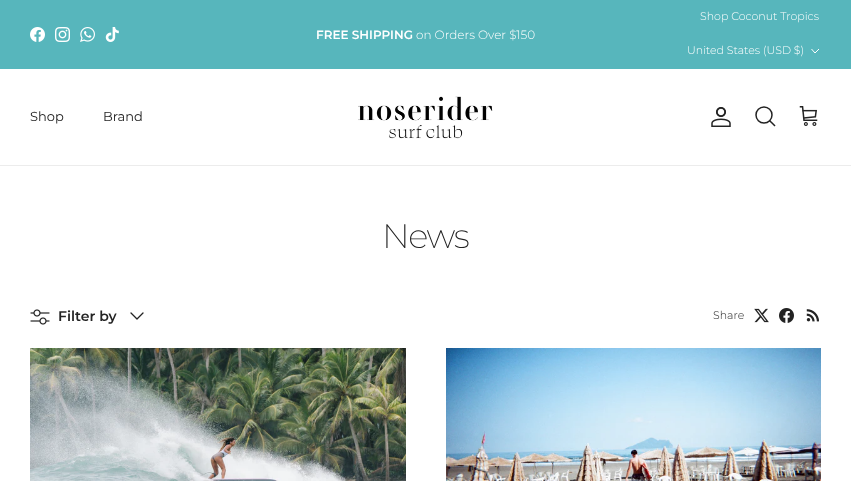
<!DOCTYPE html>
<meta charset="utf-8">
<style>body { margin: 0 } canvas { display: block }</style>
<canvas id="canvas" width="851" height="481"></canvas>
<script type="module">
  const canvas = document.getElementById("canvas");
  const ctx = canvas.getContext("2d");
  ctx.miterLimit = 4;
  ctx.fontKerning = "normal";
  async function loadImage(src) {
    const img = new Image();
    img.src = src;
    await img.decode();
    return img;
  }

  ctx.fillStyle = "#ffffff";
  ctx.fillRect(0, 0, 851, 481);
  ctx.fillStyle = "#57b6bc";
  ctx.fillRect(0, 0, 851, 69);
  ctx.drawImage(await loadImage("img1.png"), 30, 27, 15, 15);
  ctx.drawImage(await loadImage("img2.png"), 55, 27, 15, 15);
  ctx.drawImage(await loadImage("img3.png"), 80, 27, 15, 15);
  ctx.drawImage(await loadImage("img4.png"), 105, 27, 14, 15);
  ctx.font = "600 12px Montserrat";
  ctx.fillStyle = "#ffffff";
  ctx.fillText("FREE SHIPPING", 316, 39);
  ctx.font = "300 12px Montserrat";
  ctx.fillText("on Orders Over $150", 416, 39);
  ctx.font = "300 11px Montserrat";
  ctx.fillText("Shop Coconut Tropics", 700, 20);
  ctx.fillText("United States (USD $)", 687, 54);
  ctx.beginPath();
  ctx.moveTo(819, 49);
  ctx.lineTo(815, 53);
  ctx.lineTo(811.5, 49);
  ctx.strokeStyle = "#ffffff";
  ctx.stroke();
  ctx.fillStyle = "#ececec";
  ctx.fillRect(0, 165, 851, 1);
  ctx.font = "100 13px Montserrat";
  ctx.fillStyle = "#232323";
  ctx.fillText("Shop", 30, 121);
  ctx.fillText("Brand", 103, 121);
  ctx.drawImage(await loadImage("img5.png"), 358, 96, 135, 43);
  ctx.drawImage(await loadImage("img6.png"), 711, 107, 20, 20);
  ctx.beginPath();
  ctx.arc(764, 115, 8, 0, Math.PI * 2);
  ctx.strokeStyle = "#232323";
  ctx.lineWidth = 1.5;
  ctx.stroke();
  ctx.beginPath();
  ctx.moveTo(770, 121);
  ctx.lineTo(774.5, 125.5);
  ctx.lineCap = "square";
  ctx.stroke();
  ctx.drawImage(await loadImage("img7.png"), 799, 106, 19, 20);
  ctx.letterSpacing = "-1.5px";
  ctx.font = "200 34px Montserrat";
  ctx.fillText("News", 382, 248);
  ctx.drawImage(await loadImage("img8.png"), 30, 309, 20, 16);
  ctx.letterSpacing = "0px";
  ctx.font = "600 14px Montserrat";
  ctx.fillText("Filter by", 58, 321);
  ctx.beginPath();
  ctx.moveTo(131, 313);
  ctx.lineTo(137, 319);
  ctx.lineTo(143, 313);
  ctx.lineWidth = 1.3;
  ctx.lineCap = "round";
  ctx.lineJoin = "round";
  ctx.stroke();
  ctx.font = "300 11px Montserrat";
  ctx.fillText("Share", 713, 319);
  ctx.drawImage(await loadImage("img9.png"), 754, 308, 15, 15);
  ctx.drawImage(await loadImage("img10.png"), 779, 308, 15, 15);
  ctx.drawImage(await loadImage("img11.png"), 806, 309, 13, 13);
  ctx.drawImage(await loadImage("img12.png"), 30, 348, 376, 133);
  ctx.drawImage(await loadImage("img13.png"), 446, 348, 375, 133);
</script>
